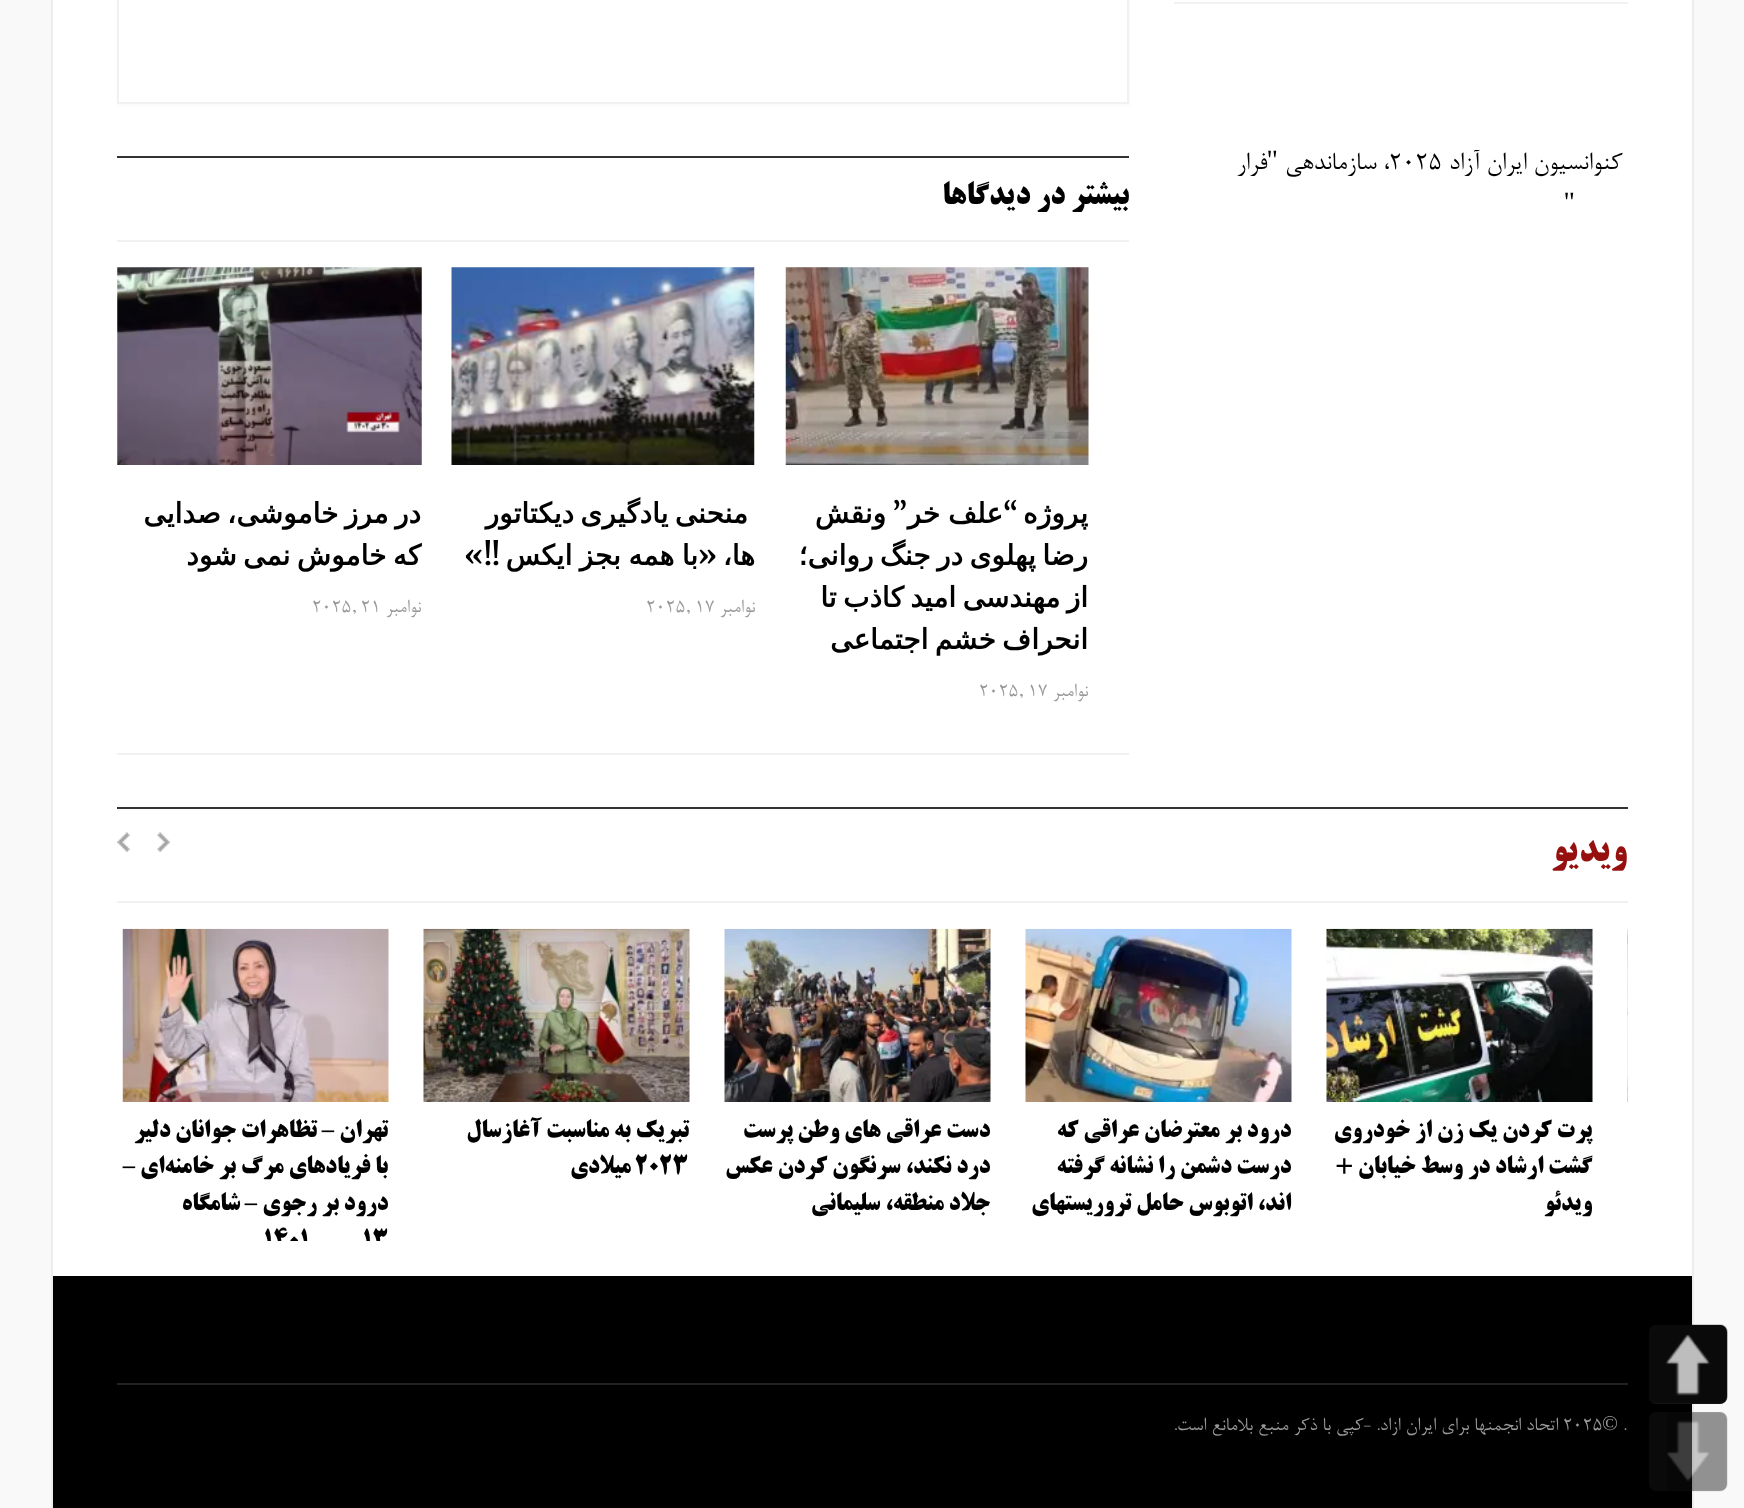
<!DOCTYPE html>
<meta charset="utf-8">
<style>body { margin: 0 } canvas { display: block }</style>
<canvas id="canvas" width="1744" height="1508"></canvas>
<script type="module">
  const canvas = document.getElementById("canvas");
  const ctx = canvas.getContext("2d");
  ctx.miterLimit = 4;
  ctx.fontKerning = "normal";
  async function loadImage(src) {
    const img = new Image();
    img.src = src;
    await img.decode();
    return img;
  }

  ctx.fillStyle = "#f9f9f9";
  ctx.fillRect(0, 0, 1744, 1508);
  ctx.fillStyle = "#eeecec";
  ctx.fillRect(1692, 0, 2, 1508);
  ctx.fillStyle = "#000000";
  ctx.fillRect(53, 1276, 1639, 232);
  ctx.fillStyle = "#222222";
  ctx.beginPath();
  ctx.roundRect(1649, 1325, 78, 79, 7);
  ctx.fill();
  ctx.drawImage(await loadImage("img1.png"), 1649, 1324, 79, 80);
  ctx.fillStyle = "rgba(34, 34, 34, 0.3)";
  ctx.beginPath();
  ctx.roundRect(1649, 1412, 78, 79, 7);
  ctx.fill();
  ctx.drawImage(await loadImage("img2.png"), 1667, 1412, 61, 80);
  ctx.fillStyle = "#ffffff";
  ctx.fillRect(53, 0, 1639, 1276);
  ctx.fillStyle = "#eeecec";
  ctx.fillRect(51, 0, 2, 1508);
  ctx.fillStyle = "#f1f1f1";
  ctx.fillRect(1174, 2, 454, 2);
  ctx.direction = "rtl";
  ctx.font = "28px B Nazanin";
  ctx.fillStyle = "#000000";
  ctx.fillText("کنوانسیون ایران آزاد", 1622, 169);
  ctx.direction = "ltr";
  ctx.fillText("۲۰۲۵", 1389, 169);
  ctx.direction = "rtl";
  ctx.fillText("، سازماندهی", 1389, 169);
  ctx.font = "28px Liberation Serif";
  ctx.fillText("\"", 1278, 169);
  ctx.font = "28px B Nazanin";
  ctx.fillText("فرار", 1267, 169);
  ctx.font = "28px Liberation Serif";
  ctx.fillText("\"", 1575, 211);
  ctx.fillStyle = "#fcfcfc";
  ctx.beginPath();
  ctx.moveTo(116, -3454);
  ctx.lineTo(116, 107);
  ctx.lineTo(1131, 107);
  ctx.lineTo(1131, -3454);
  ctx.lineTo(1129, -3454);
  ctx.lineTo(1129, 103);
  ctx.lineTo(117, 103);
  ctx.lineTo(117, -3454);
  ctx.closePath();
  ctx.fill();
  ctx.fillStyle = "#f1f1f1";
  ctx.beginPath();
  ctx.moveTo(1129, -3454);
  ctx.lineTo(1129, 103);
  ctx.lineTo(1127, 102);
  ctx.lineTo(1127, -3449);
  ctx.closePath();
  ctx.fill();
  ctx.fillRect(117, 102, 1012, 2);
  ctx.beginPath();
  ctx.moveTo(117, 103);
  ctx.lineTo(117, -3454);
  ctx.lineTo(119, -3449);
  ctx.lineTo(119, 102);
  ctx.closePath();
  ctx.fill();
  ctx.fillRect(117, 753, 1012, 2);
  ctx.fillStyle = "#333333";
  ctx.fillRect(117, 156, 1012, 2);
  ctx.fillStyle = "#f1f1f1";
  ctx.fillRect(117, 240, 1012, 2);
  ctx.font = "bold 31.5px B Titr";
  ctx.fillStyle = "#000000";
  ctx.fillText("بیشتر در دیدگاها", 1129, 204);
  ctx.drawImage(await loadImage("img3.png"), 785, 267, 304, 198);
  ctx.font = "bold 28px DejaVu Sans";
  ctx.fillText("پروژه", 1088, 523);
  ctx.font = "bold 28px Merriweather";
  ctx.fillText("“", 1018, 523);
  ctx.fillText("”", 907, 523);
  ctx.wordSpacing = "-1px";
  ctx.font = "bold 28px DejaVu Sans";
  ctx.fillText("علف ‌خر", 1003, 523);
  ctx.wordSpacing = "0px";
  ctx.fillText("ونقش", 886, 523);
  ctx.wordSpacing = "-2.5px";
  ctx.fillText("رضا پهلوی در جنگ روانی؛", 1088, 565);
  ctx.fillText("از مهندسی امید کاذب تا", 1088, 607);
  ctx.fillText("انحراف خشم اجتماعی", 1088, 649);
  ctx.wordSpacing = "0px";
  ctx.font = "21px B Nazanin";
  ctx.fillStyle = "#999999";
  ctx.fillText("نوامبر", 1088, 696);
  ctx.direction = "ltr";
  ctx.fillText("2025, 17", 979, 696);
  ctx.drawImage(await loadImage("img4.png"), 451, 267, 304, 198);
  ctx.wordSpacing = "-2.5px";
  ctx.direction = "rtl";
  ctx.font = "bold 28px DejaVu Sans";
  ctx.fillStyle = "#000000";
  ctx.fillText("منحنی یادگیری دیکتاتور", 748, 523);
  ctx.wordSpacing = "0px";
  ctx.fillText("ها،", 755, 565);
  ctx.wordSpacing = "-1.5px";
  ctx.fillText("با همه بجز ایکس", 698, 565);
  ctx.wordSpacing = "0px";
  ctx.font = "bold 28px Merriweather";
  ctx.fillText("«", 717, 565);
  ctx.fillText("!!»", 500, 565);
  ctx.font = "21px B Nazanin";
  ctx.fillStyle = "#999999";
  ctx.fillText("نوامبر", 755, 612);
  ctx.direction = "ltr";
  ctx.fillText("2025, 17", 646, 612);
  ctx.drawImage(await loadImage("img5.png"), 117, 267, 305, 198);
  ctx.wordSpacing = "-2.5px";
  ctx.direction = "rtl";
  ctx.font = "bold 28px DejaVu Sans";
  ctx.fillStyle = "#000000";
  ctx.fillText("در مرز خاموشی، صدایی", 421, 523);
  ctx.fillText("که خاموش نمی شود", 421, 565);
  ctx.wordSpacing = "0px";
  ctx.font = "21px B Nazanin";
  ctx.fillStyle = "#999999";
  ctx.fillText("نوامبر", 421, 612);
  ctx.direction = "ltr";
  ctx.fillText("2025, 21", 312, 612);
  ctx.fillStyle = "#333333";
  ctx.fillRect(117, 807, 1511, 2);
  ctx.fillStyle = "#f1f1f1";
  ctx.fillRect(117, 901, 1511, 2);
  ctx.direction = "rtl";
  ctx.font = "bold 38px B Titr";
  ctx.fillStyle = "#961010";
  ctx.fillText("ویدیو", 1627, 861);
  ctx.drawImage(await loadImage("img6.png"), 157, 832, 13, 20);
  ctx.drawImage(await loadImage("img7.png"), 117, 832, 13, 20);
  ctx.drawImage(await loadImage("img8.png"), 1627, 929, 1, 173);
  ctx.drawImage(await loadImage("img9.png"), 1326, 928, 267, 174);
  ctx.font = "bold 24.5px B Titr";
  ctx.fillStyle = "#000000";
  ctx.fillText("پرت کردن یک زن از خودروی", 1592, 1137);
  ctx.fillText("گشت ارشاد در وسط خیابان +", 1592, 1173);
  ctx.fillText("ویدئو", 1592, 1210);
  ctx.drawImage(await loadImage("img10.png"), 1025, 928, 267, 174);
  ctx.fillText("درود بر معترضان عراقی که", 1291, 1137);
  ctx.fillText("درست دشمن را نشانه گرفته", 1291, 1173);
  ctx.fillText("اند، اتوبوس حامل تروریستهای", 1291, 1210);
  ctx.drawImage(await loadImage("img11.png"), 724, 928, 267, 174);
  ctx.fillText("دست عراقی های وطن پرست", 990, 1137);
  ctx.fillText("درد نکند، سرنگون کردن عکس", 990, 1173);
  ctx.fillText("جلاد منطقه، سلیمانی", 990, 1210);
  ctx.drawImage(await loadImage("img12.png"), 423, 928, 267, 174);
  ctx.fillText("تبریک به مناسبت آغازسال", 689, 1137);
  ctx.direction = "ltr";
  ctx.fillText("۲۰۲۳", 635, 1173);
  ctx.direction = "rtl";
  ctx.fillText("میلادی", 631, 1173);
  ctx.drawImage(await loadImage("img13.png"), 122, 928, 267, 174);
  ctx.fillText("تهران", 388, 1137);
  ctx.font = "bold 24.5px Liberation Serif";
  ctx.fillText("–", 334, 1137);
  ctx.font = "bold 24.5px B Titr";
  ctx.fillText("تظاهرات جوانان دلیر", 317, 1137);
  ctx.fillText("با فریادهای مرگ بر خامنه‌ای", 388, 1173);
  ctx.font = "bold 24.5px Liberation Serif";
  ctx.fillText("–", 135, 1173);
  ctx.font = "bold 24.5px B Titr";
  ctx.fillText("درود بر رجوی", 388, 1210);
  ctx.font = "bold 24.5px Liberation Serif";
  ctx.fillText("–", 257, 1210);
  ctx.font = "bold 24.5px B Titr";
  ctx.fillText("شامگاه", 240, 1210);
  ctx.save();
  ctx.beginPath();
  ctx.rect(123, 929, 1505, 312);
  ctx.clip();
  ctx.direction = "ltr";
  ctx.fillText("۱۳", 362, 1247);
  ctx.fillText("۱۴۰۱", 263, 1247);
  ctx.restore();
  ctx.fillStyle = "#222222";
  ctx.fillRect(117, 1383, 1511, 2);
  ctx.direction = "ltr";
  ctx.font = "21px B Nazanin";
  ctx.fillStyle = "#999999";
  ctx.fillText(".", 1623, 1430);
  ctx.font = "21px Liberation Serif";
  ctx.fillText("©", 1602, 1430);
  ctx.font = "21px B Nazanin";
  ctx.fillText("2025", 1563, 1430);
  ctx.direction = "rtl";
  ctx.fillText("اتحاد انجمنها برای ایران ازاد. -کپی با ذکر منبع بلامانع است.", 1558, 1430);
</script>
